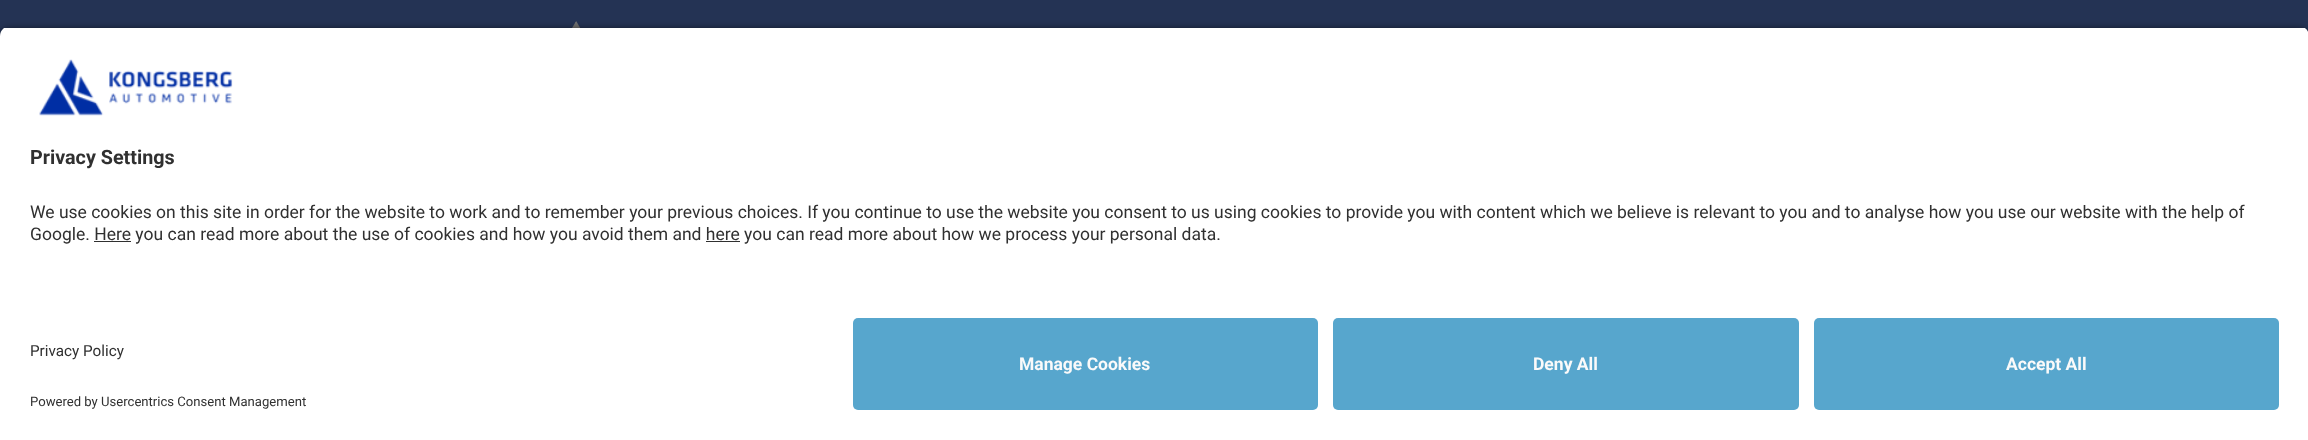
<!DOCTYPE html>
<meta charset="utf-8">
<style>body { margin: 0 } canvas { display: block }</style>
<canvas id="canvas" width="2308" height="440"></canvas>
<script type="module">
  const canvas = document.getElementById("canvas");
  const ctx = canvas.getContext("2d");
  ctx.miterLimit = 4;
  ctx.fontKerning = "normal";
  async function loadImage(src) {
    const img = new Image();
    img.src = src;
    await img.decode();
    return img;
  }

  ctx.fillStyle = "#243354";
  ctx.fillRect(0, 0, 2308, 440);
  ctx.drawImage(await loadImage("img1.png"), 572, 21, 9, 7);
  ctx.fillStyle = "rgba(0, 0, 0, 0.8)";
  ctx.filter = "blur(4.5px)";
  ctx.beginPath();
  ctx.roundRect(0, 30, 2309, 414, 10);
  ctx.fill();
  ctx.filter = "none";
  ctx.save();
  ctx.beginPath();
  ctx.moveTo(10, 26);
  ctx.lineTo(2299, 26);
  ctx.bezierCurveTo(2304.5, 26, 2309, 30.5, 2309, 36);
  ctx.lineTo(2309, 308);
  ctx.lineTo(0, 308);
  ctx.lineTo(0, 36);
  ctx.bezierCurveTo(0, 30.5, 4.5, 26, 10, 26);
  ctx.closePath();
  ctx.clip();
  ctx.fillStyle = "#ffffff";
  ctx.fillRect(0, 28, 2308, 280);
  ctx.restore();
  ctx.drawImage(await loadImage("img2.png"), 39, 59, 194, 57);
  ctx.font = "bold 19.75px Roboto";
  ctx.fillStyle = "#303030";
  ctx.fillText("Privacy Settings", 30, 164);
  ctx.font = "17.5px Roboto";
  ctx.fillText("We use cookies on this site in order for the website to work and to remember your previous choices. If you continue to use the website you consent to us using cookies to provide you with content which we believe is relevant to you and to analyse how you use our website with the help of", 30, 218);
  ctx.fillText("Google. Here you can read more about the use of cookies and how you avoid them and here you can read more about how we process your personal data.", 30, 240);
  ctx.fillRect(94, 241, 37, 1);
  ctx.fillRect(706, 241, 34, 1);
  ctx.fillStyle = "#ffffff";
  ctx.fillRect(0, 308, 2308, 132);
  ctx.font = "15.25px Roboto";
  ctx.fillStyle = "#303030";
  ctx.fillText("Privacy Policy", 30, 356);
  ctx.font = "13.1px Roboto";
  ctx.fillText("Powered by Usercentrics Consent Management", 30, 406);
  ctx.fillStyle = "#57a6cd";
  ctx.beginPath();
  ctx.roundRect(853, 318, 465, 92, 5);
  ctx.fill();
  ctx.font = "bold 17.5px Roboto";
  ctx.fillStyle = "#fafafa";
  ctx.fillText("Manage Cookies", 1019, 370);
  ctx.fillStyle = "#57a6cd";
  ctx.beginPath();
  ctx.roundRect(1333, 318, 466, 92, 5);
  ctx.fill();
  ctx.fillStyle = "#fafafa";
  ctx.fillText("Deny All", 1533, 370);
  ctx.fillStyle = "#57a6cd";
  ctx.beginPath();
  ctx.roundRect(1814, 318, 465, 92, 5);
  ctx.fill();
  ctx.fillStyle = "#fafafa";
  ctx.fillText("Accept All", 2006, 370);
</script>
